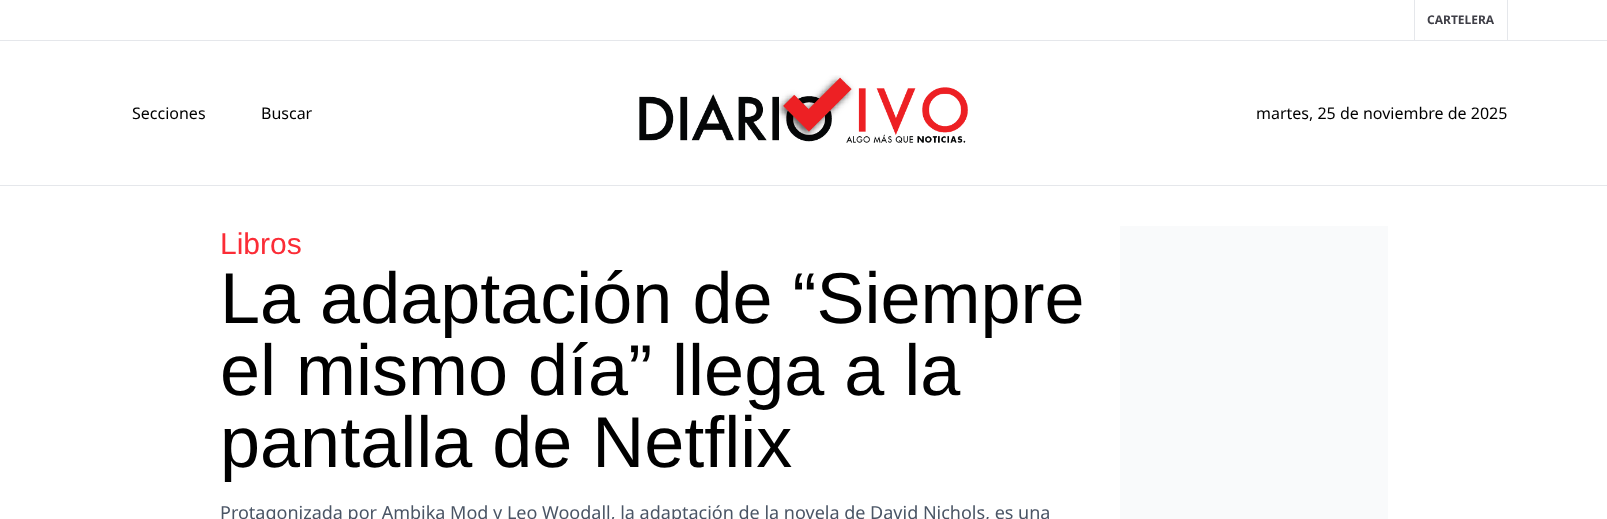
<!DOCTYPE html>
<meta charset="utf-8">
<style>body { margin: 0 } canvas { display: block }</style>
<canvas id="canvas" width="1607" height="519"></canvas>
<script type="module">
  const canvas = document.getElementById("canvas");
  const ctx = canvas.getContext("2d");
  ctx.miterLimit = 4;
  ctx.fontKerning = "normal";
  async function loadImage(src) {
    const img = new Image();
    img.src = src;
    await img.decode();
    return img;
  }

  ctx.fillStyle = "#ffffff";
  ctx.fillRect(0, 0, 1607, 519);
  ctx.fillStyle = "#e5e7eb";
  ctx.fillRect(0, 185, 1607, 1);
  ctx.fillRect(0, 40, 1607, 1);
  ctx.fillRect(1507, 0, 1, 40);
  ctx.fillRect(1414, 0, 1, 40);
  ctx.font = "bold 12px Noto Sans";
  ctx.fillStyle = "#3f3f47";
  ctx.fillText("CARTELERA", 1427, 24);
  ctx.font = "16px Noto Sans";
  ctx.fillStyle = "#000000";
  ctx.fillText("Secciones", 132, 119);
  ctx.fillText("Buscar", 261, 119);
  ctx.drawImage(await loadImage("img1.png"), 639, 75, 329, 68);
  ctx.fillText("martes, 25 de noviembre de 2025", 1256, 119);
  ctx.font = "30px Liberation Sans";
  ctx.fillStyle = "#fb2c36";
  ctx.fillText("Libros", 220, 254);
  ctx.font = "72px Liberation Sans";
  ctx.fillStyle = "#000000";
  ctx.fillText("La adaptación de “Siempre", 220, 323);
  ctx.fillText("el mismo día” llega a la", 220, 395);
  ctx.fillText("pantalla de Netflix", 220, 467);
  ctx.font = "18px Noto Sans";
  ctx.fillStyle = "#4a5565";
  ctx.fillText("Protagonizada por Ambika Mod y Leo Woodall, la adaptación de la novela de David Nichols, es una", 220, 519);
  ctx.fillStyle = "#f9fafb";
  ctx.fillRect(1120, 226, 268, 293);
</script>
